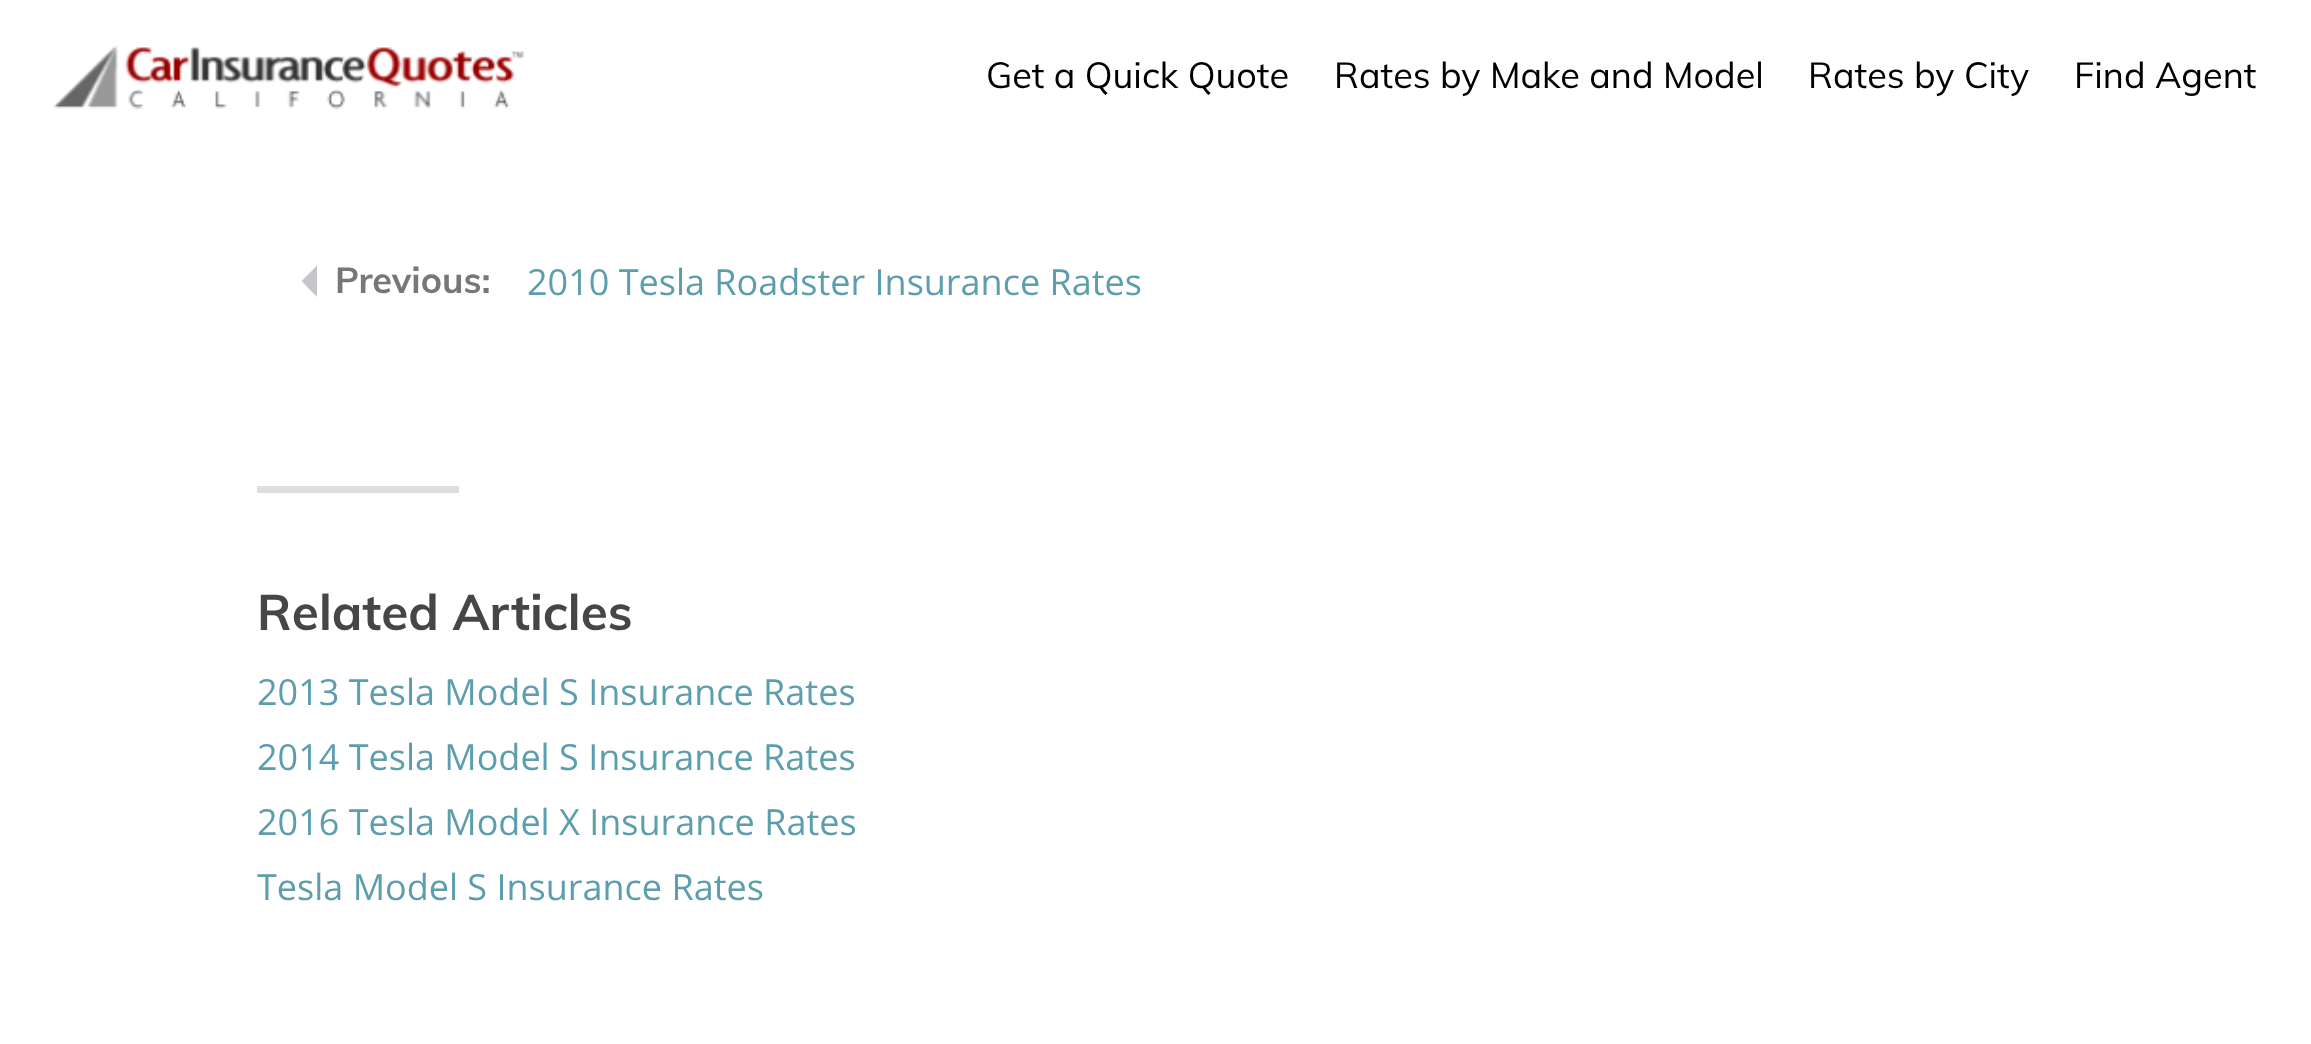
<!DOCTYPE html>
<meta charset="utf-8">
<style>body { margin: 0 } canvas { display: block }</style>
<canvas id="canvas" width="2311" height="1044"></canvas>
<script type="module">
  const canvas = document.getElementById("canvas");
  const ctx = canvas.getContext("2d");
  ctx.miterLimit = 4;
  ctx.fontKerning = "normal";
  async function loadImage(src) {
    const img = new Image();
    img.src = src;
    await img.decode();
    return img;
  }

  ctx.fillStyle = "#ffffff";
  ctx.fillRect(0, 0, 2311, 1044);
  ctx.drawImage(await loadImage("img1.png"), 54, 45, 471, 65);
  ctx.font = "36px Muli";
  ctx.fillStyle = "#000000";
  ctx.fillText("Get a Quick Quote", 986, 88);
  ctx.fillText("Rates by Make and Model", 1334, 88);
  ctx.fillText("Rates by City", 1808, 88);
  ctx.fillText("Find Agent", 2074, 88);
  ctx.fillStyle = "#c4c6c9";
  ctx.beginPath();
  ctx.moveTo(317, 265.5);
  ctx.lineTo(317, 297);
  ctx.lineTo(301.5, 281);
  ctx.closePath();
  ctx.fill();
  ctx.font = "bold 36px Muli";
  ctx.fillStyle = "#757779";
  ctx.fillText("Previous:", 335, 293);
  ctx.font = "36px Open Sans";
  ctx.fillStyle = "#5c9ead";
  ctx.fillText("2010 Tesla Roadster Insurance Rates", 527, 295);
  ctx.fillStyle = "#dedede";
  ctx.fillRect(257, 486, 202, 7);
  ctx.font = "bold 49.5px Muli";
  ctx.fillStyle = "#454647";
  ctx.fillText("Related Articles", 257, 630);
  ctx.font = "36px Open Sans";
  ctx.fillStyle = "#5c9ead";
  ctx.fillText("2013 Tesla Model S Insurance Rates", 257, 705);
  ctx.fillText("2014 Tesla Model S Insurance Rates", 257, 770);
  ctx.fillText("2016 Tesla Model X Insurance Rates", 257, 835);
  ctx.fillText("Tesla Model S Insurance Rates", 257, 900);
</script>
